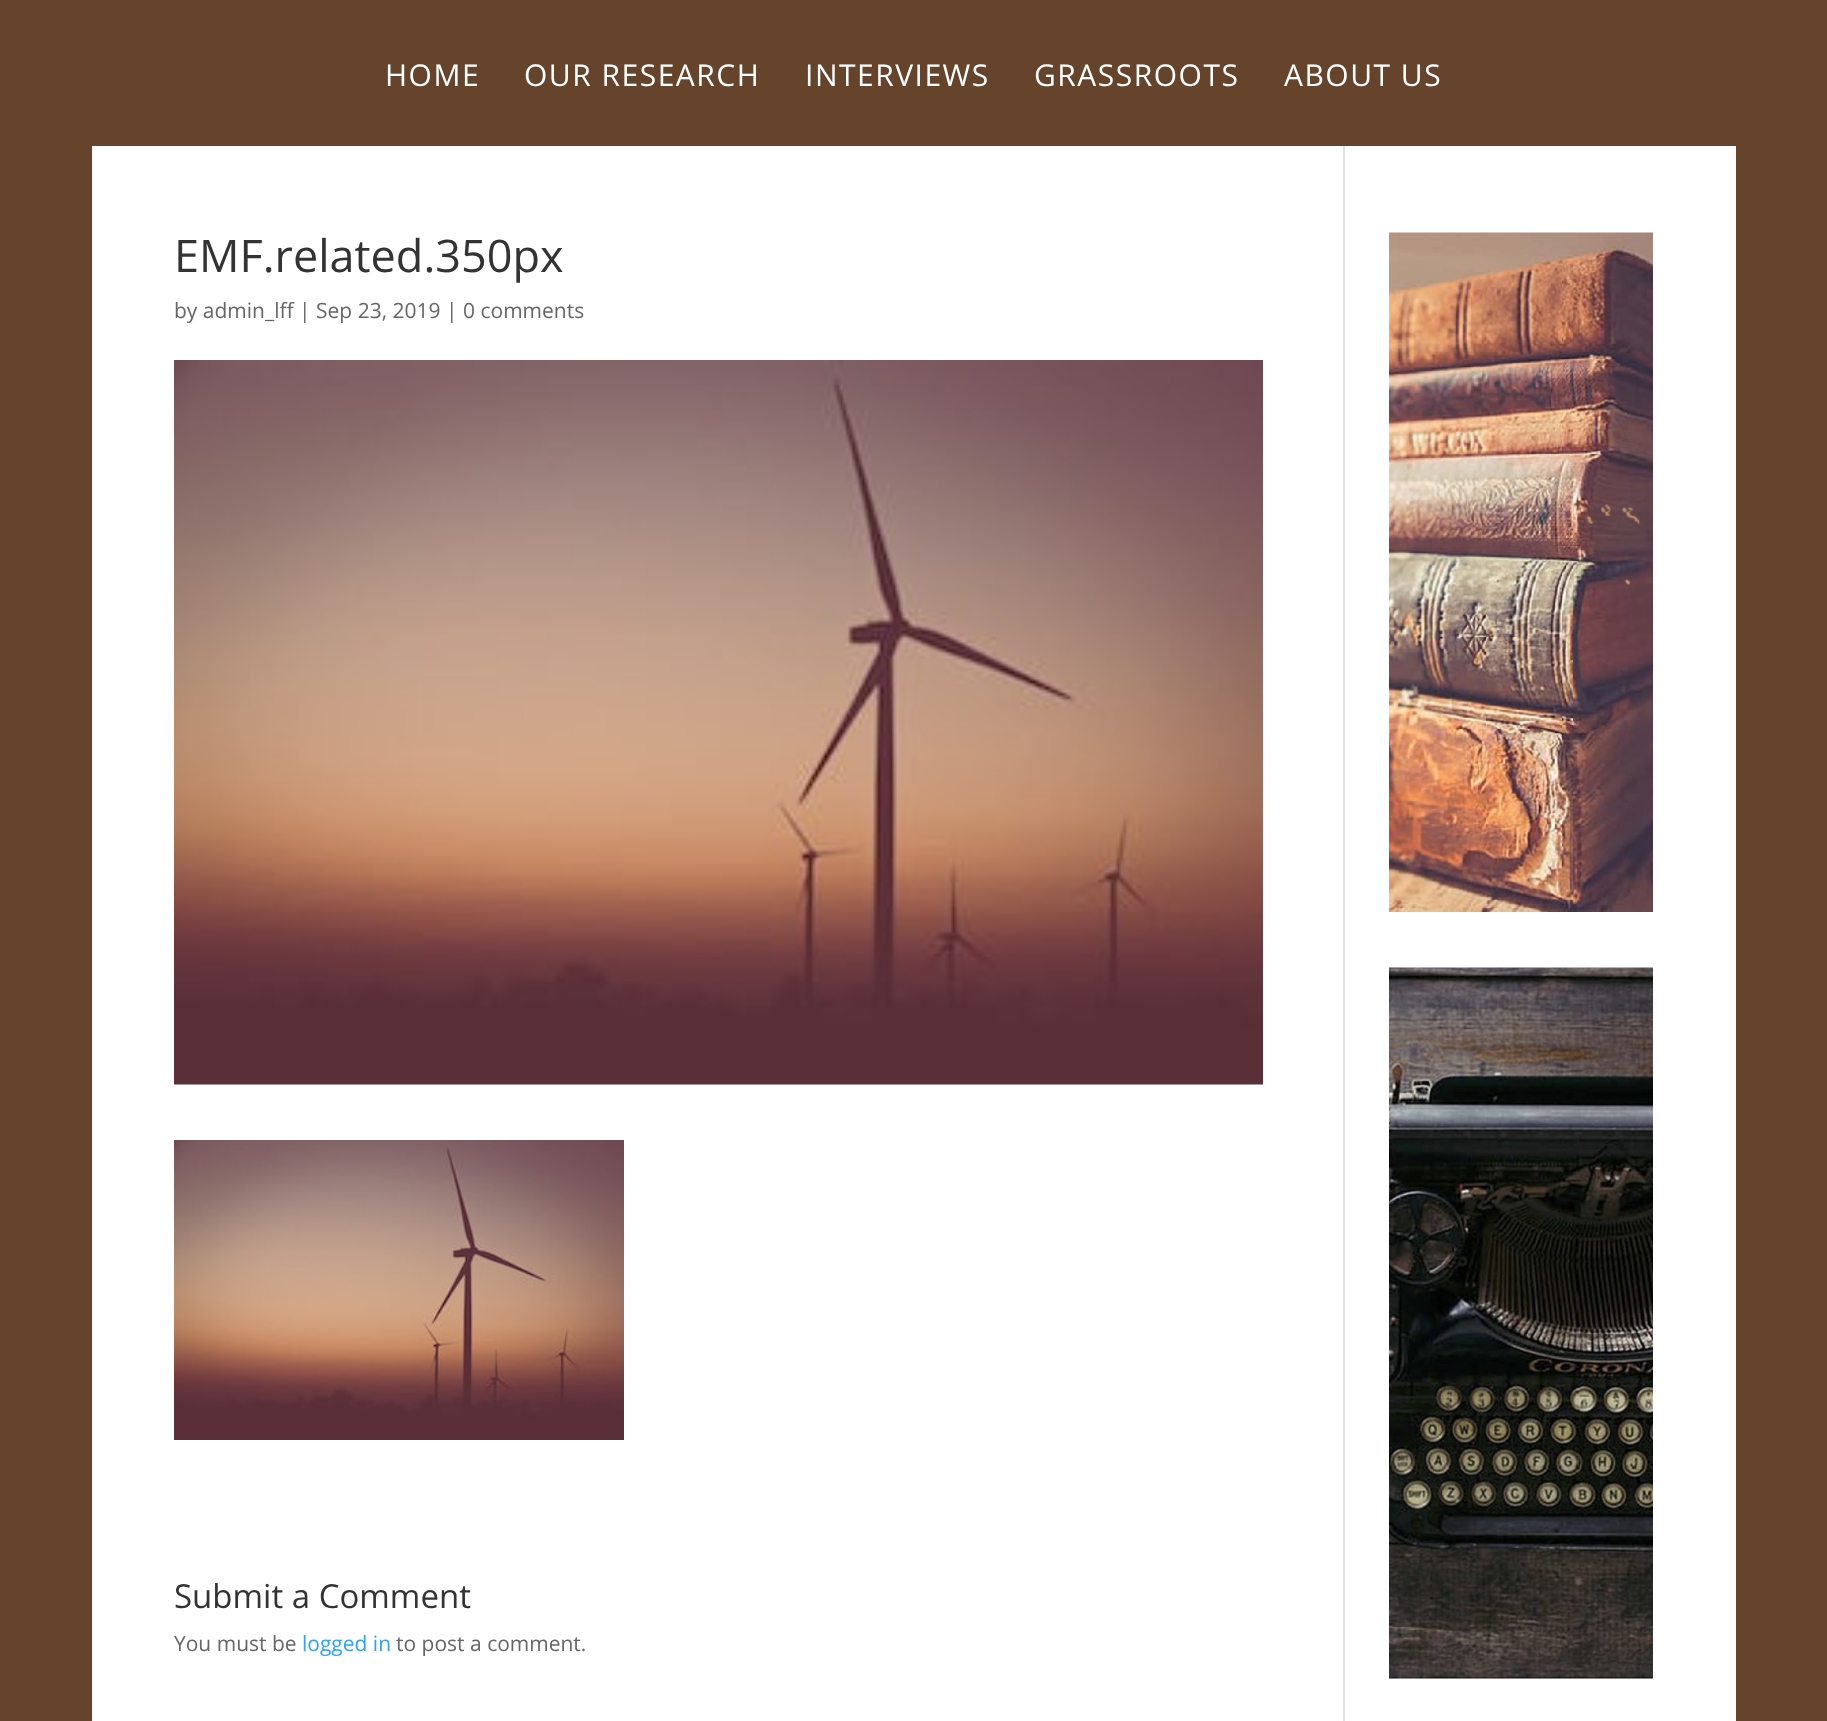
<!DOCTYPE html>
<meta charset="utf-8">
<style>body { margin: 0 } canvas { display: block }</style>
<canvas id="canvas" width="1827" height="1721"></canvas>
<script type="module">
  const canvas = document.getElementById("canvas");
  const ctx = canvas.getContext("2d");
  ctx.miterLimit = 4;
  ctx.fontKerning = "normal";
  async function loadImage(src) {
    const img = new Image();
    img.src = src;
    await img.decode();
    return img;
  }

  ctx.fillStyle = "#66442c";
  ctx.fillRect(0, 0, 1827, 1721);
  ctx.letterSpacing = "1.5px";
  ctx.font = "30px Open Sans";
  ctx.fillStyle = "#ffffff";
  ctx.fillText("HOME", 385, 86);
  ctx.fillText("OUR RESEARCH", 524, 86);
  ctx.fillText("INTERVIEWS", 805, 86);
  ctx.fillText("GRASSROOTS", 1034, 86);
  ctx.fillText("ABOUT US", 1284, 86);
  ctx.fillRect(92, 146, 1644, 1575);
  ctx.letterSpacing = "0px";
  ctx.font = "45px Open Sans";
  ctx.fillStyle = "#333333";
  ctx.fillText("EMF.related.350px", 174, 272);
  ctx.font = "21px Open Sans";
  ctx.fillStyle = "#666666";
  ctx.fillText("by admin_lff | Sep 23, 2019 | 0 comments", 174, 318);
  ctx.drawImage(await loadImage("img1.png"), 174, 360, 1089, 725);
  ctx.drawImage(await loadImage("img2.png"), 174, 1140, 450, 300);
  ctx.font = "33px Open Sans";
  ctx.fillStyle = "#333333";
  ctx.fillText("Submit a Comment", 174, 1608);
  ctx.font = "21px Open Sans";
  ctx.fillStyle = "#666666";
  ctx.fillText("You must be", 174, 1651);
  ctx.fillStyle = "#2ea3f2";
  ctx.fillText("logged in", 302, 1651);
  ctx.fillStyle = "#666666";
  ctx.fillText("to post a comment.", 396, 1651);
  ctx.drawImage(await loadImage("img3.png"), 1389, 232, 264, 680);
  ctx.drawImage(await loadImage("img4.png"), 1389, 967, 264, 712);
  ctx.fillStyle = "#e2e2e2";
  ctx.fillRect(1343, 146, 2, 1575);
</script>
